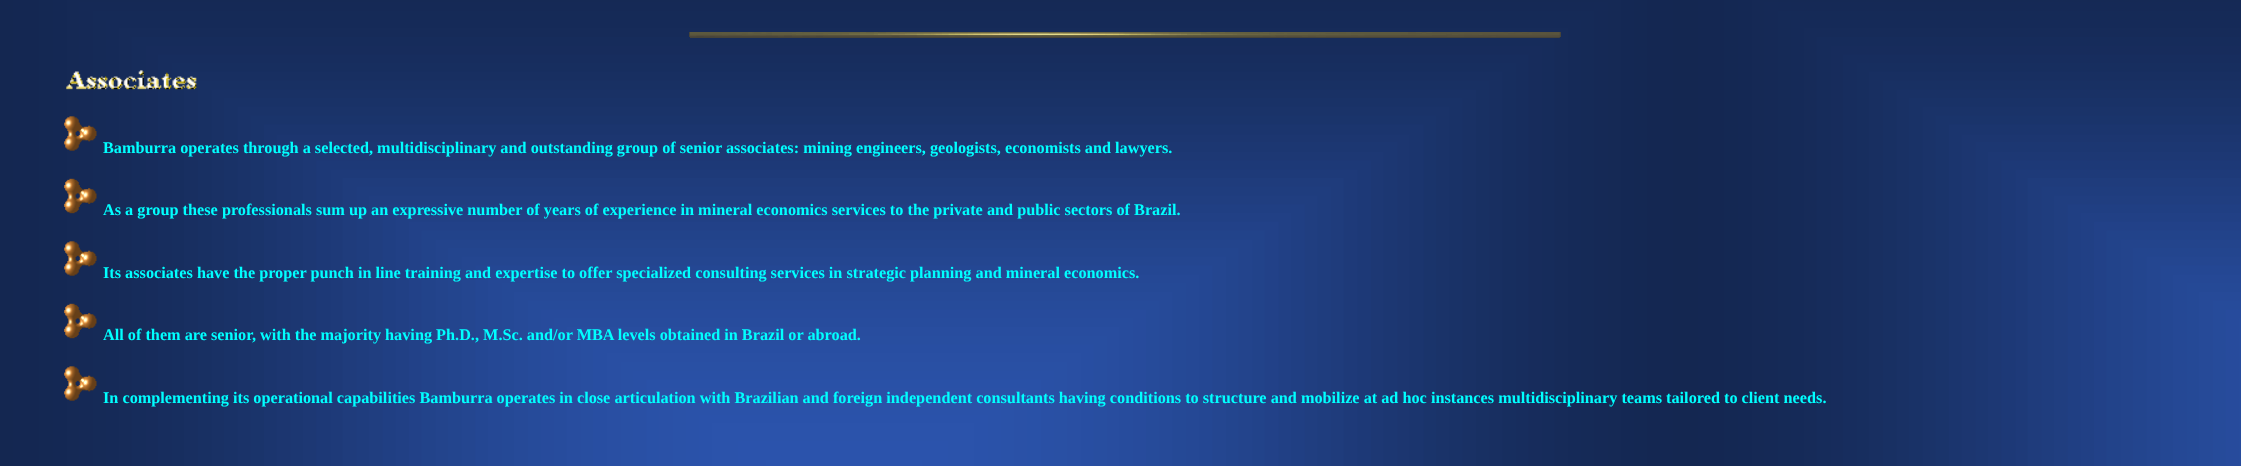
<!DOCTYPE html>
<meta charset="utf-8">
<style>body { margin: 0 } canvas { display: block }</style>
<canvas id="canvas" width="2241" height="466"></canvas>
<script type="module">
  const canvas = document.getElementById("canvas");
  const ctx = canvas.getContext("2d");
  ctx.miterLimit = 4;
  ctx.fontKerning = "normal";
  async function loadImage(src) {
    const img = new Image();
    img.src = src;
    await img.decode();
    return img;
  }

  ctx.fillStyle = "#ffffff";
  ctx.fillRect(0, 0, 2241, 466);
  ctx.drawImage(await loadImage("img1.png"), 0, 0, 2241, 466);
  ctx.drawImage(await loadImage("img2.png"), 689, 32, 872, 6);
  ctx.drawImage(await loadImage("img3.png"), 66, 70, 131, 20);
  ctx.drawImage(await loadImage("img4.png"), 64, 116, 33, 35);
  ctx.font = "bold 16.25px Liberation Serif";
  ctx.fillStyle = "#00ffff";
  ctx.fillText("Bamburra operates through a selected, multidisciplinary and outstanding group of senior associates: mining engineers, geologists, economists and lawyers.", 103, 153);
  ctx.drawImage(await loadImage("img5.png"), 64, 178, 33, 36);
  ctx.fillText("As a group these professionals sum up an expressive number of years of experience in mineral economics services to the private and public sectors of Brazil.", 103, 215);
  ctx.drawImage(await loadImage("img4.png"), 64, 241, 33, 35);
  ctx.fillText("Its associates have the proper punch in line training and expertise to offer specialized consulting services in strategic planning and mineral economics.", 103, 278);
  ctx.drawImage(await loadImage("img5.png"), 64, 303, 33, 36);
  ctx.fillText("All of them are senior, with the majority having Ph.D., M.Sc. and/or MBA levels obtained in Brazil or abroad.", 103, 340);
  ctx.drawImage(await loadImage("img4.png"), 64, 366, 33, 35);
  ctx.fillText("In complementing its operational capabilities Bamburra operates in close articulation with Brazilian and foreign independent consultants having conditions to structure and mobilize at ad hoc instances multidisciplinary teams tailored to client needs.", 103, 403);
</script>
